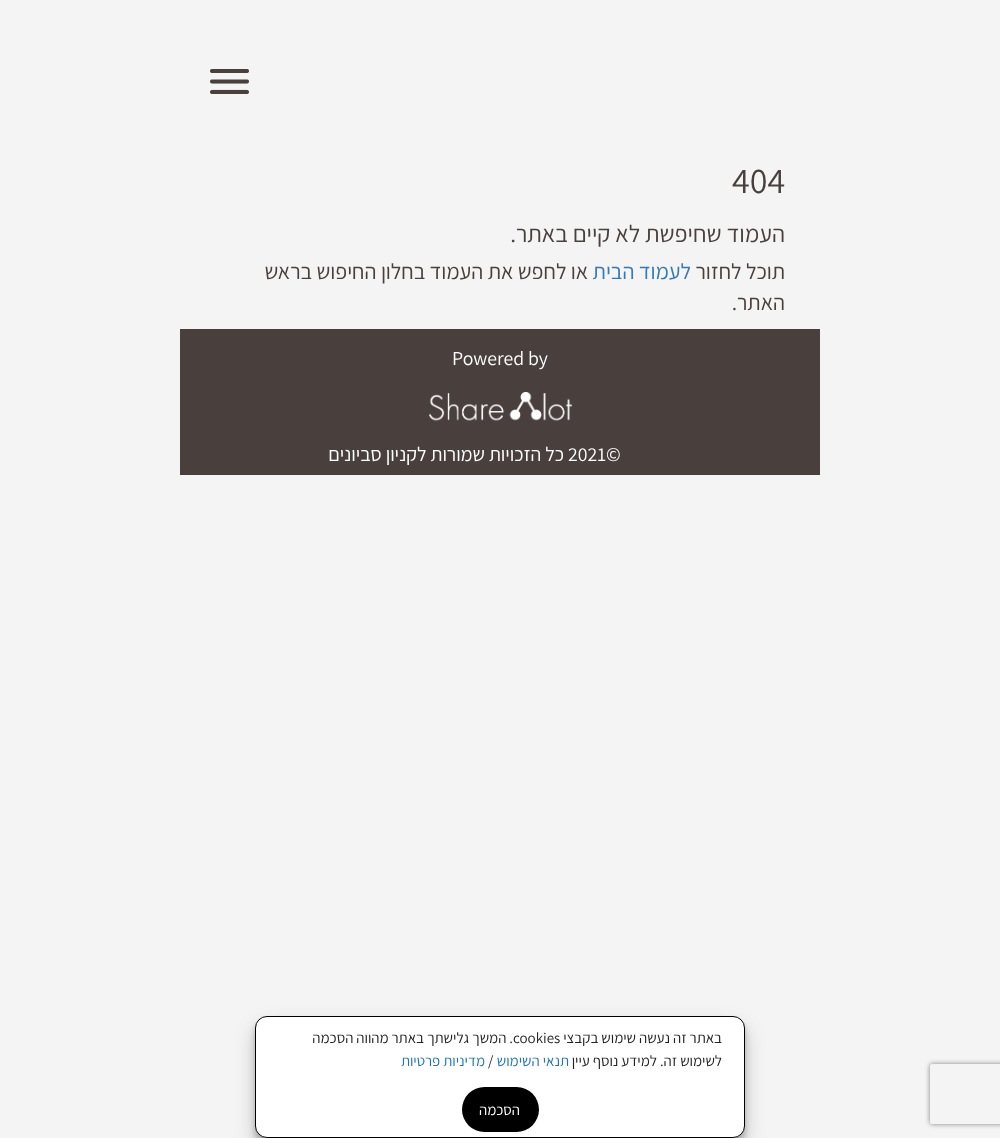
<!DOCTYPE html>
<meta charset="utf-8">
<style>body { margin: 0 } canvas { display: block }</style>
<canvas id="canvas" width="1000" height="1138"></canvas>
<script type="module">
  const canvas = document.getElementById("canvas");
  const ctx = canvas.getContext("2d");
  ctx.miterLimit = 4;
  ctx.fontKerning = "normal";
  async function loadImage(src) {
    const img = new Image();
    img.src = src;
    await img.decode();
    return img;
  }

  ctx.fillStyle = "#f4f4f4";
  ctx.fillRect(0, 0, 1000, 1138);
  ctx.drawImage(await loadImage("img1.png"), 210, 69, 39, 25);
  ctx.font = "200 36px Assistant";
  ctx.fillStyle = "#493f3c";
  ctx.fillText("404", 732, 193);
  ctx.direction = "rtl";
  ctx.font = "200 24px Assistant";
  ctx.fillText("העמוד שחיפשת לא קיים באתר.", 785, 242);
  ctx.font = "200 22px Assistant";
  ctx.fillText("תוכל לחזור", 785, 279);
  ctx.fillStyle = "#337ab7";
  ctx.fillText("לעמוד הבית", 691, 279);
  ctx.fillStyle = "#493f3c";
  ctx.fillText("או לחפש את העמוד בחלון החיפוש בראש", 588, 279);
  ctx.fillText("האתר.", 785, 310);
  ctx.fillStyle = "#493f3d";
  ctx.fillRect(180, 329, 640, 146);
  ctx.direction = "ltr";
  ctx.font = "200 19.75px Assistant";
  ctx.fillStyle = "#ffffff";
  ctx.fillText("Powered by", 452, 365);
  ctx.drawImage(await loadImage("img2.png"), 429, 392, 143, 29);
  ctx.fillText("2021©", 568, 461);
  ctx.direction = "rtl";
  ctx.fillText("כל הזכויות שמורות לקניון סביונים", 564, 461);
  ctx.save();
  ctx.beginPath();
  ctx.moveTo(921, 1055);
  ctx.lineTo(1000, 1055);
  ctx.lineTo(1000, 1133);
  ctx.lineTo(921, 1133);
  ctx.closePath();
  ctx.moveTo(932, 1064);
  ctx.lineTo(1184, 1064);
  ctx.bezierCurveTo(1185, 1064, 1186, 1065, 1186, 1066);
  ctx.lineTo(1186, 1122);
  ctx.bezierCurveTo(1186, 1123, 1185, 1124, 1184, 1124);
  ctx.lineTo(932, 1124);
  ctx.bezierCurveTo(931, 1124, 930, 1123, 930, 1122);
  ctx.lineTo(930, 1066);
  ctx.bezierCurveTo(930, 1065, 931, 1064, 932, 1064);
  ctx.closePath();
  ctx.clip("evenodd");
  ctx.fillStyle = "#808080";
  ctx.filter = "blur(2.5px)";
  ctx.beginPath();
  ctx.roundRect(930, 1064, 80, 60, 2);
  ctx.fill();
  ctx.filter = "none";
  ctx.restore();
  ctx.fillStyle = "rgba(0, 0, 0, 0.23)";
  ctx.filter = "blur(3px)";
  ctx.beginPath();
  ctx.roundRect(255, 1022, 490, 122, 12);
  ctx.fill();
  ctx.filter = "none";
  ctx.fillStyle = "rgba(0, 0, 0, 0.19)";
  ctx.filter = "blur(10px)";
  ctx.beginPath();
  ctx.roundRect(255, 1026, 490, 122, 12);
  ctx.fill();
  ctx.filter = "none";
  ctx.fillStyle = "#ffffff";
  ctx.beginPath();
  ctx.roundRect(255.5, 1016.5, 489, 121, 11.5);
  ctx.fill();
  ctx.strokeStyle = "#000000";
  ctx.stroke();
  ctx.font = "200 15px Assistant";
  ctx.fillStyle = "#222222";
  ctx.fillText("באתר זה נעשה שימוש בקבצי", 722, 1043);
  ctx.direction = "ltr";
  ctx.fillText("cookies", 513, 1043);
  ctx.direction = "rtl";
  ctx.fillText(". המשך גלישתך באתר מהווה הסכמה", 513, 1043);
  ctx.fillText("לשימוש זה. למידע נוסף עיין", 722, 1066);
  ctx.fillStyle = "#1e73be";
  ctx.fillText("תנאי השימוש", 569, 1066);
  ctx.direction = "ltr";
  ctx.fillStyle = "#222222";
  ctx.fillText("/", 488, 1066);
  ctx.direction = "rtl";
  ctx.fillStyle = "#1e73be";
  ctx.fillText("מדיניות פרטיות", 485, 1066);
  ctx.fillStyle = "#000000";
  ctx.beginPath();
  ctx.roundRect(462, 1087, 77, 45, 22.5);
  ctx.fill();
  ctx.fillStyle = "#ffffff";
  ctx.fillText("הסכמה", 520, 1115);
</script>
